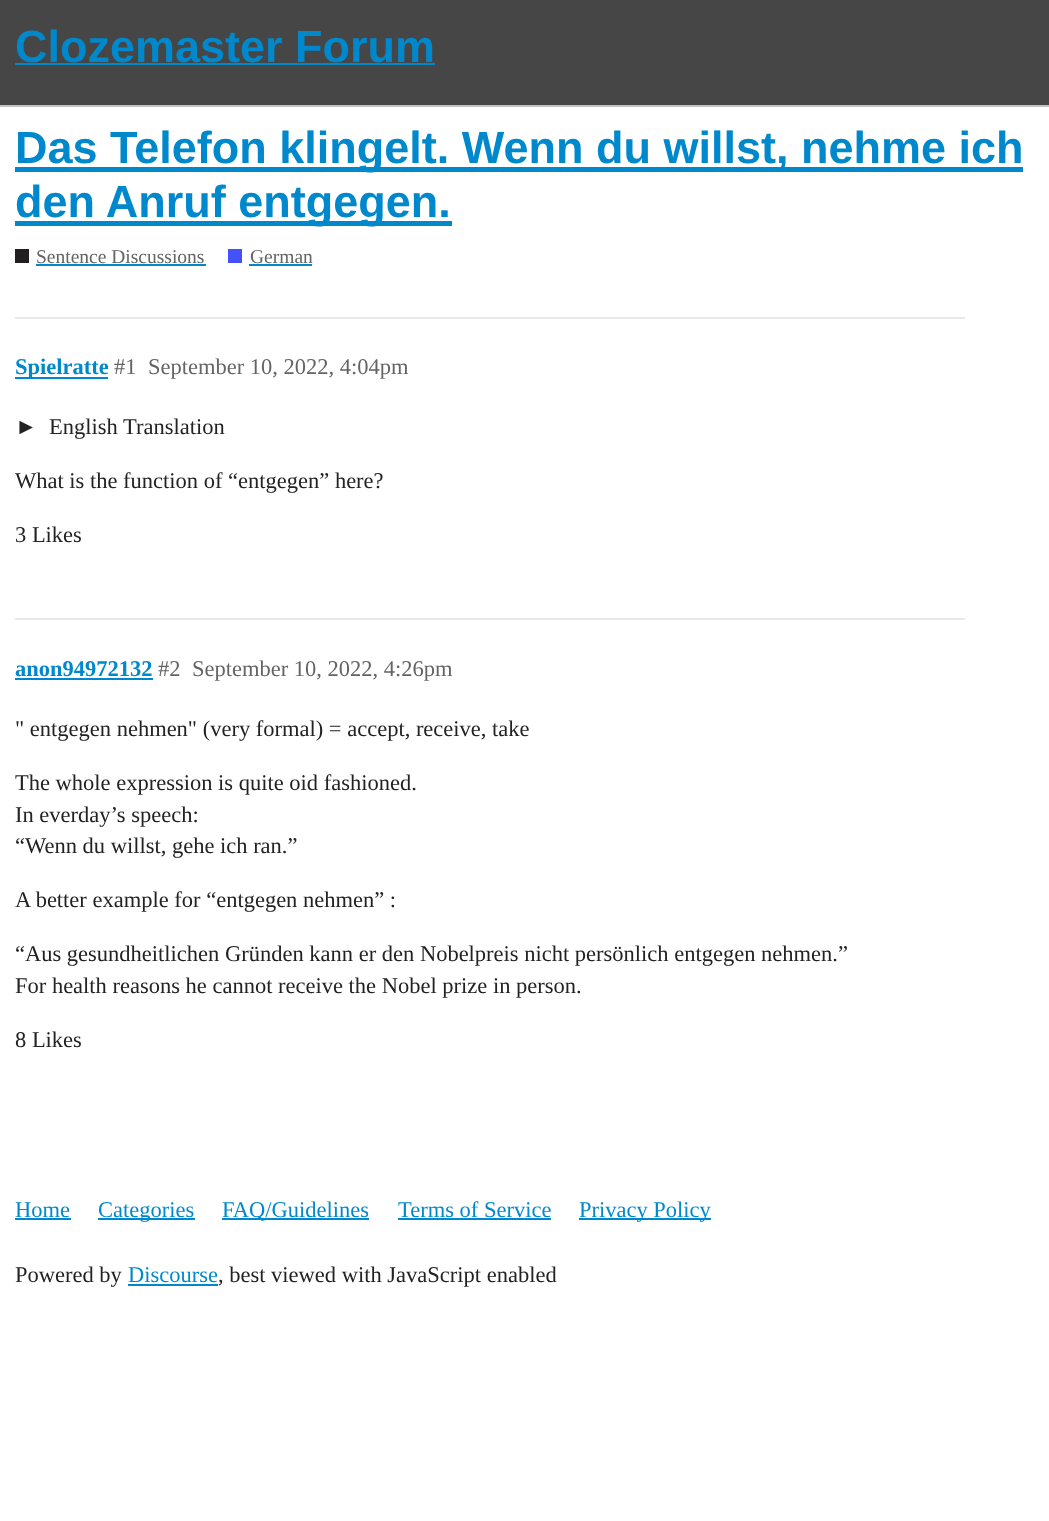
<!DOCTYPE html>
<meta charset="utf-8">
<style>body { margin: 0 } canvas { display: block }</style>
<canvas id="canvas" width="1049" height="1521"></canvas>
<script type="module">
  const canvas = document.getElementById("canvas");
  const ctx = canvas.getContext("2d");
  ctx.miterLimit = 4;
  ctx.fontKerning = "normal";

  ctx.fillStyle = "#ffffff";
  ctx.fillRect(0, 0, 1049, 1521);
  ctx.fillStyle = "#464646";
  ctx.fillRect(0, 0, 1049, 105);
  ctx.fillStyle = "#c3c3c3";
  ctx.fillRect(0, 105, 1049, 2);
  ctx.font = "bold 45px Liberation Sans";
  ctx.fillStyle = "#0088cc";
  ctx.fillText("Clozemaster Forum", 15, 62);
  ctx.fillRect(15, 63, 420, 2);
  ctx.fillRect(15, 167, 1008, 5);
  ctx.fillText("Das Telefon klingelt. Wenn du willst, nehme ich", 15, 163);
  ctx.fillRect(15, 221, 437, 5);
  ctx.fillText("den Anruf entgegen.", 15, 217);
  ctx.fillStyle = "#231f20";
  ctx.fillRect(15, 249, 14, 14);
  ctx.font = "19.5px Liberation Serif";
  ctx.fillStyle = "#646464";
  ctx.fillText("Sentence Discussions", 36, 263);
  ctx.fillStyle = "#0088cc";
  ctx.fillRect(36, 264, 170, 2);
  ctx.fillStyle = "#4252f8";
  ctx.fillRect(228, 249, 14, 14);
  ctx.fillStyle = "#646464";
  ctx.fillText("German", 250, 263);
  ctx.fillStyle = "#0088cc";
  ctx.fillRect(249, 264, 63, 2);
  ctx.fillStyle = "#e9e9e9";
  ctx.fillRect(15, 317, 950, 2);
  ctx.fillStyle = "#0088cc";
  ctx.fillRect(15, 377, 93, 2);
  ctx.font = "bold 22.5px Liberation Serif";
  ctx.fillText("Spielratte", 15, 374);
  ctx.font = "22.5px Liberation Serif";
  ctx.fillStyle = "#646464";
  ctx.fillText("#1", 114, 374);
  ctx.fillText("September 10, 2022, 4:04pm", 148, 374);
  ctx.fillStyle = "#222222";
  ctx.fillText("►", 15, 434);
  ctx.fillText("English Translation", 49, 434);
  ctx.fillText("What is the function of “entgegen” here?", 15, 488);
  ctx.fillText("3 Likes", 15, 542);
  ctx.fillStyle = "#e9e9e9";
  ctx.fillRect(15, 618, 950, 2);
  ctx.font = "bold 22.5px Liberation Serif";
  ctx.fillStyle = "#0088cc";
  ctx.fillText("anon94972132", 15, 676);
  ctx.fillRect(15, 678, 138, 2);
  ctx.font = "22.5px Liberation Serif";
  ctx.fillStyle = "#646464";
  ctx.fillText("#2", 158, 676);
  ctx.fillText("September 10, 2022, 4:26pm", 192, 676);
  ctx.fillStyle = "#222222";
  ctx.fillText("\" entgegen nehmen\" (very formal) = accept, receive, take", 15, 736);
  ctx.fillText("The whole expression is quite oid fashioned.", 15, 790);
  ctx.fillText("In everday’s speech:", 15, 822);
  ctx.fillText("“Wenn du willst, gehe ich ran.”", 15, 853);
  ctx.fillText("A better example for “entgegen nehmen” :", 15, 907);
  ctx.fillText("“Aus gesundheitlichen Gründen kann er den Nobelpreis nicht persönlich entgegen nehmen.”", 15, 961);
  ctx.fillText("For health reasons he cannot receive the Nobel prize in person.", 15, 993);
  ctx.fillText("8 Likes", 15, 1047);
  ctx.fillStyle = "#0088cc";
  ctx.fillText("Home", 15, 1217);
  ctx.fillRect(15, 1218, 56, 2);
  ctx.fillRect(98, 1218, 97, 2);
  ctx.fillText("Categories", 98, 1217);
  ctx.fillRect(222, 1218, 147, 2);
  ctx.fillText("FAQ/Guidelines", 222, 1217);
  ctx.fillText("Terms of Service", 398, 1217);
  ctx.fillRect(398, 1218, 153, 2);
  ctx.fillRect(579, 1218, 132, 2);
  ctx.fillText("Privacy Policy", 579, 1217);
  ctx.fillStyle = "#222222";
  ctx.fillText("Powered by", 15, 1282);
  ctx.fillStyle = "#0088cc";
  ctx.fillText("Discourse", 128, 1282);
  ctx.fillRect(128, 1284, 90, 2);
  ctx.fillStyle = "#222222";
  ctx.fillText(", best viewed with JavaScript enabled", 218, 1282);
</script>
